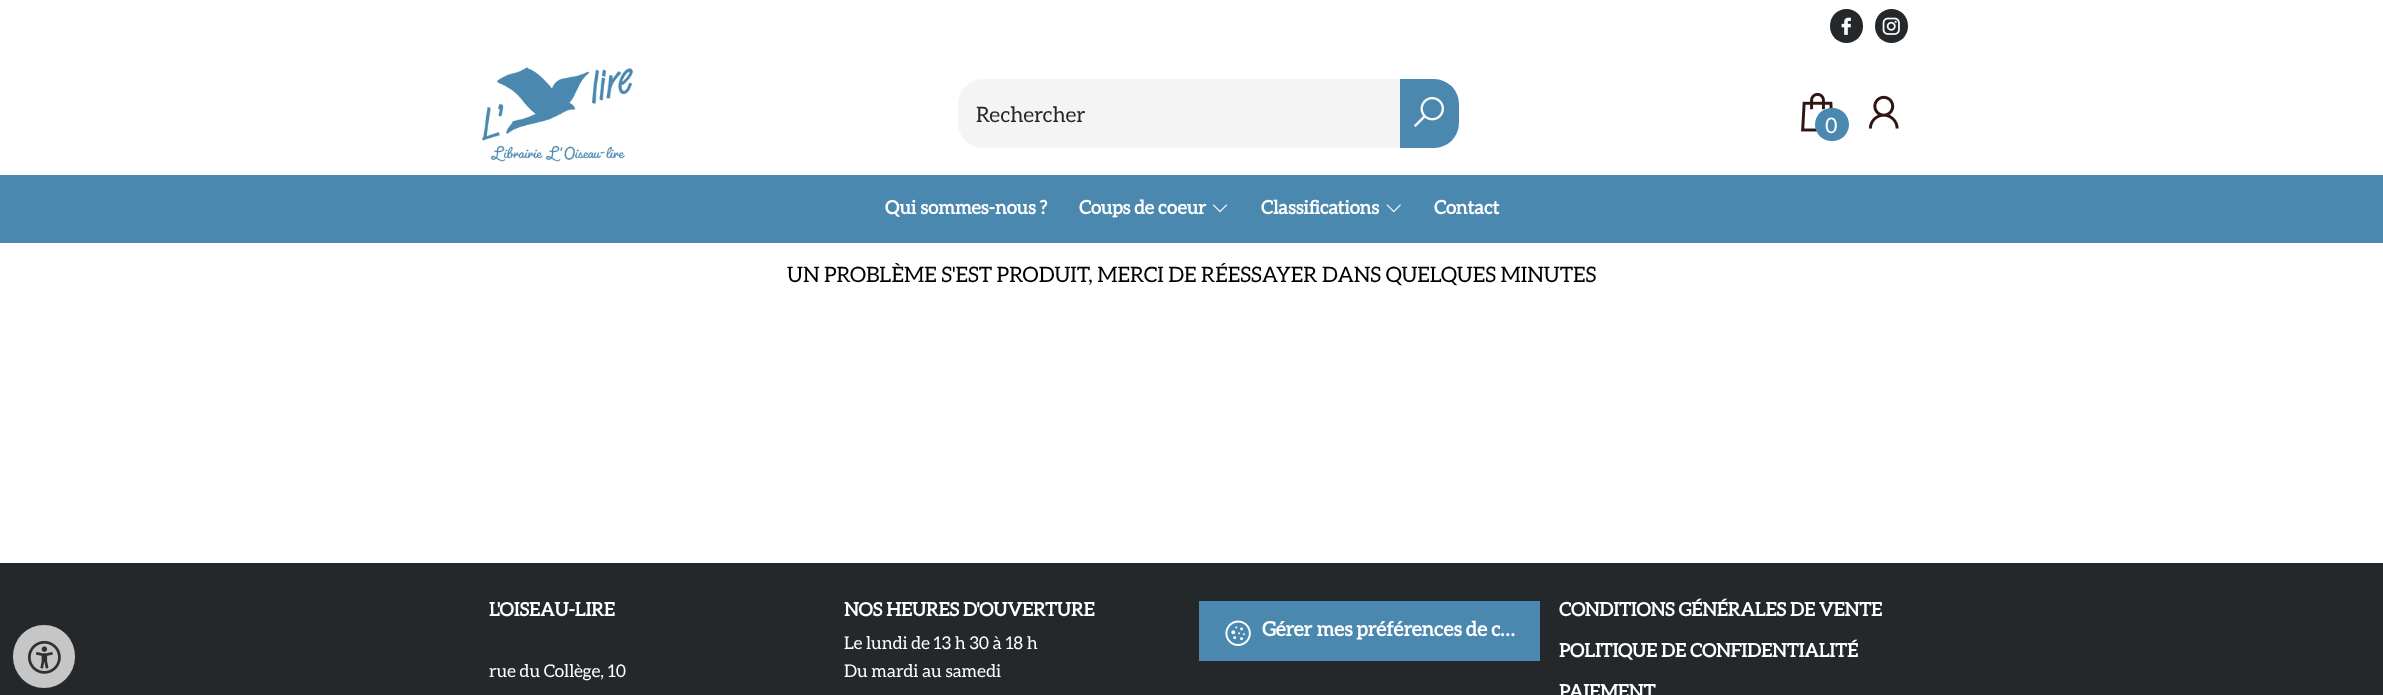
<!DOCTYPE html>
<meta charset="utf-8">
<style>body { margin: 0 } canvas { display: block }</style>
<canvas id="canvas" width="2383" height="695"></canvas>
<script type="module">
  const canvas = document.getElementById("canvas");
  const ctx = canvas.getContext("2d");
  ctx.miterLimit = 4;
  ctx.fontKerning = "normal";
  async function loadImage(src) {
    const img = new Image();
    img.src = src;
    await img.decode();
    return img;
  }

  ctx.fillStyle = "#ffffff";
  ctx.fillRect(0, 0, 2383, 695);
  ctx.fillStyle = "#24282b";
  ctx.beginPath();
  ctx.roundRect(1830, 9, 33, 34, 16.5);
  ctx.fill();
  ctx.drawImage(await loadImage("img1.png"), 1841, 17, 10, 18);
  ctx.beginPath();
  ctx.roundRect(1875, 9, 33, 34, 16.5);
  ctx.fill();
  ctx.drawImage(await loadImage("img2.png"), 1882, 17, 18, 18);
  ctx.drawImage(await loadImage("img3.png"), 482, 67, 151, 95);
  ctx.fillStyle = "#f4f4f4";
  ctx.beginPath();
  ctx.roundRect(958, 79, 500, 69, 25);
  ctx.fill();
  ctx.font = "21.25px Aleo";
  ctx.fillStyle = "#262626";
  ctx.fillText("Rechercher", 976, 122);
  ctx.fillStyle = "#4b88af";
  ctx.beginPath();
  ctx.roundRect(1400, 79, 59, 69, [0, 25, 25, 0]);
  ctx.fill();
  ctx.drawImage(await loadImage("img4.png"), 1413, 96, 31, 31);
  ctx.drawImage(await loadImage("img5.png"), 1801, 92, 32, 40);
  ctx.beginPath();
  ctx.roundRect(1815, 108, 34, 33, 16.5);
  ctx.fill();
  ctx.fillStyle = "#ffffff";
  ctx.fillText("0", 1825, 133);
  ctx.drawImage(await loadImage("img6.png"), 1868, 95, 31, 34);
  ctx.fillStyle = "#4b88af";
  ctx.fillRect(0, 175, 2383, 68);
  ctx.font = "bold 18.75px Aleo";
  ctx.fillStyle = "#ffffff";
  ctx.fillText("Qui sommes-nous ?", 885, 214);
  ctx.fillText("Coups de coeur", 1079, 214);
  ctx.drawImage(await loadImage("img7.png"), 1212, 204, 16, 9);
  ctx.fillText("Classifications", 1261, 214);
  ctx.drawImage(await loadImage("img8.png"), 1386, 204, 15, 9);
  ctx.fillText("Contact", 1434, 214);
  ctx.font = "21.25px Aleo";
  ctx.fillStyle = "#000000";
  ctx.fillText("UN PROBLÈME S'EST PRODUIT, MERCI DE RÉESSAYER DANS QUELQUES MINUTES", 787, 282);
  ctx.fillStyle = "#24282b";
  ctx.fillRect(0, 563, 2383, 132);
  ctx.fillStyle = "#c7c6c7";
  ctx.beginPath();
  ctx.roundRect(13, 625, 62, 63, 31);
  ctx.fill();
  ctx.drawImage(await loadImage("img9.png"), 28, 640, 33, 34);
  ctx.font = "bold 18.75px Aleo";
  ctx.fillStyle = "#ffffff";
  ctx.fillText("L'OISEAU-LIRE", 489, 616);
  ctx.font = "17.5px Aleo";
  ctx.fillText("rue du Collège, 10", 489, 677);
  ctx.font = "bold 18.75px Aleo";
  ctx.fillText("NOS HEURES D'OUVERTURE", 844, 616);
  ctx.font = "17.5px Aleo";
  ctx.fillText("Le lundi de 13 h 30 à 18 h", 844, 649);
  ctx.fillText("Du mardi au samedi", 844, 677);
  ctx.fillStyle = "#4b88af";
  ctx.fillRect(1199, 601, 341, 60);
  ctx.drawImage(await loadImage("img10.png"), 1225, 620, 26, 26);
  ctx.font = "bold 20px Aleo";
  ctx.fillStyle = "#ffffff";
  ctx.fillText("Gérer mes préférences de c…", 1262, 636);
  ctx.font = "bold 18.75px Aleo";
  ctx.fillText("CONDITIONS GÉNÉRALES DE VENTE", 1559, 616);
  ctx.fillText("POLITIQUE DE CONFIDENTIALITÉ", 1559, 657);
  ctx.fillText("PAIEMENT", 1559, 698);
</script>
